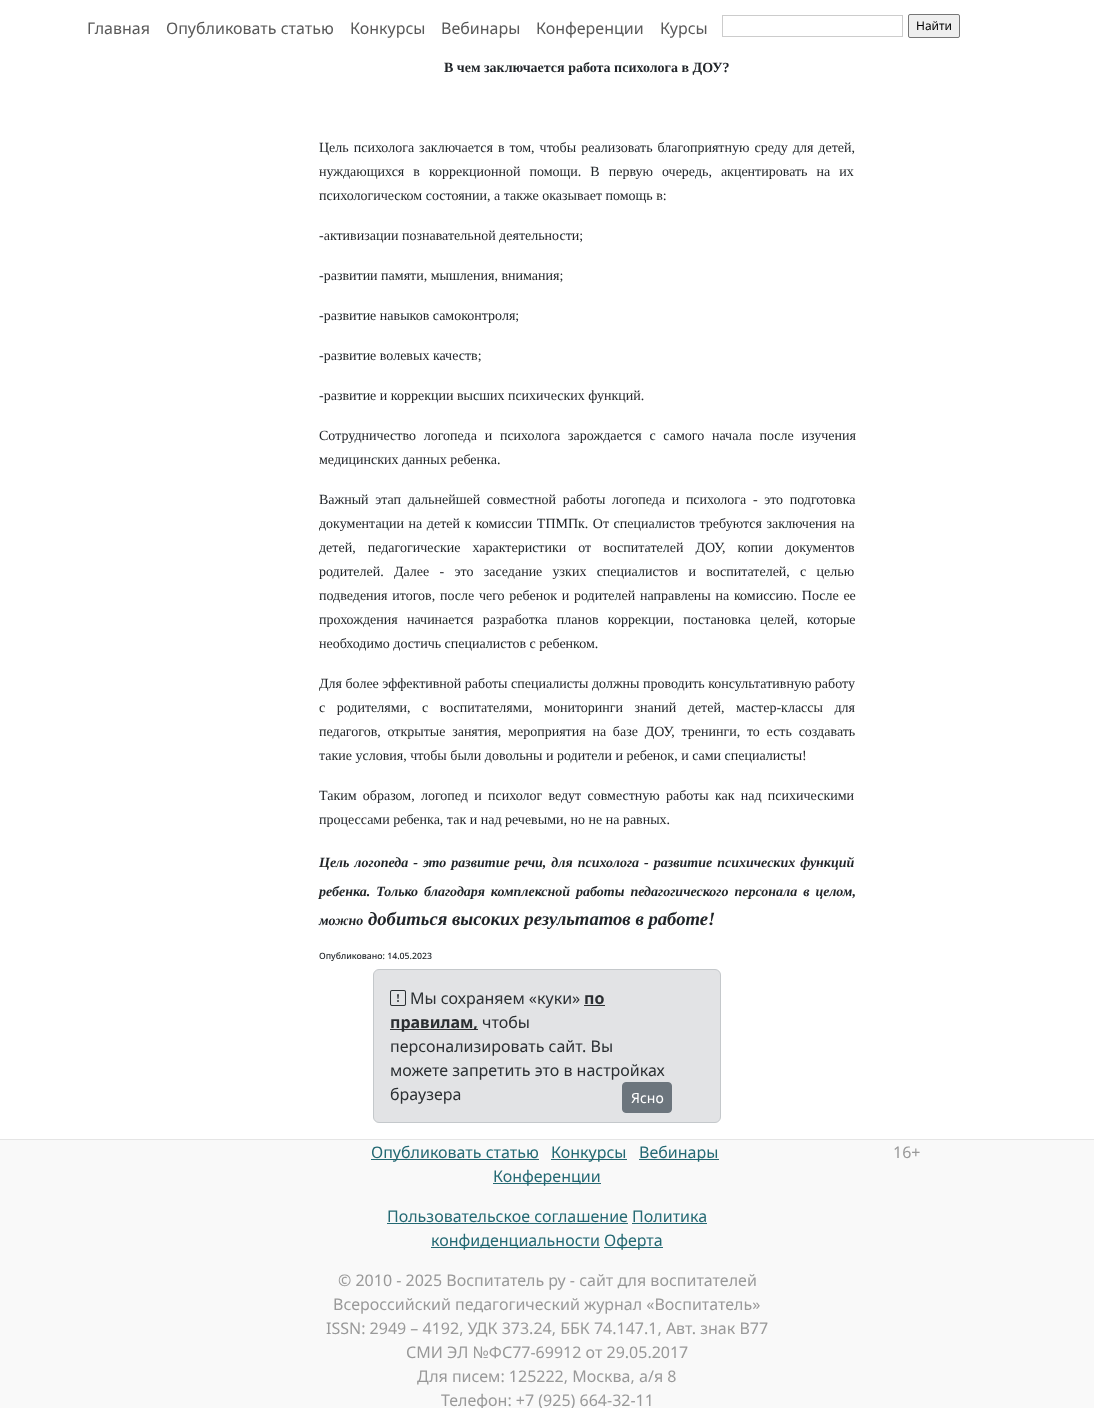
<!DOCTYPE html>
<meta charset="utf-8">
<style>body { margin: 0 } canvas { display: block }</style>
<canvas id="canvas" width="1094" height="1408"></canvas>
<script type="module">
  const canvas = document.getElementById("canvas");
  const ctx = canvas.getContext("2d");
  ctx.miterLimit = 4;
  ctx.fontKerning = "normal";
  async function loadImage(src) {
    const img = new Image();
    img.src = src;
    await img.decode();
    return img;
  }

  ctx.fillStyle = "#ffffff";
  ctx.fillRect(0, 0, 1094, 1408);
  ctx.font = "16px Noto Sans";
  ctx.fillStyle = "#595959";
  ctx.fillText("Главная", 87, 34);
  ctx.fillText("Опубликовать статью", 166, 34);
  ctx.fillText("Конкурсы", 350, 34);
  ctx.fillText("Вебинары", 441, 34);
  ctx.fillText("Конференции", 536, 34);
  ctx.fillText("Курсы", 660, 34);
  ctx.strokeStyle = "#cccccc";
  ctx.strokeRect(722.5, 15.5, 180, 21);
  ctx.fillStyle = "#efefef";
  ctx.beginPath();
  ctx.roundRect(908.5, 14.5, 51, 23, 1.5);
  ctx.fill();
  ctx.strokeStyle = "#767676";
  ctx.stroke();
  ctx.font = "12px Noto Sans";
  ctx.fillStyle = "#000000";
  ctx.fillText("Найти", 916, 30);
  ctx.font = "bold 14px Liberation Serif";
  ctx.fillStyle = "#212529";
  ctx.fillText("В чем заключается работа психолога в ДОУ?", 444, 72);
  ctx.wordSpacing = "1.5px";
  ctx.font = "14px Liberation Serif";
  ctx.fillText("Цель психолога заключается в том, чтобы реализовать благоприятную среду для детей,", 319, 152);
  ctx.wordSpacing = "5.5px";
  ctx.fillText("нуждающихся в коррекционной помощи. В первую очередь, акцентировать на их", 319, 176);
  ctx.wordSpacing = "0px";
  ctx.fillText("психологическом состоянии, а также оказывает помощь в:", 319, 200);
  ctx.fillText("-активизации познавательной деятельности;", 319, 240);
  ctx.fillText("-развитии памяти, мышления, внимания;", 319, 280);
  ctx.fillText("-развитие навыков самоконтроля;", 319, 320);
  ctx.fillText("-развитие волевых качеств;", 319, 360);
  ctx.fillText("-развитие и коррекции высших психических функций.", 319, 400);
  ctx.wordSpacing = "4.25px";
  ctx.fillText("Сотрудничество логопеда и психолога зарождается с самого начала после изучения", 319, 440);
  ctx.wordSpacing = "0px";
  ctx.fillText("медицинских данных ребенка.", 319, 464);
  ctx.wordSpacing = "3.1px";
  ctx.fillText("Важный этап дальнейшей совместной работы логопеда и психолога - это подготовка", 319, 504);
  ctx.wordSpacing = "1px";
  ctx.fillText("документации на детей к комиссии ТПМПк. От специалистов требуются заключения на", 319, 528);
  ctx.wordSpacing = "8.5px";
  ctx.fillText("детей, педагогические характеристики от воспитателей ДОУ, копии документов", 319, 552);
  ctx.wordSpacing = "6.75px";
  ctx.fillText("родителей. Далее - это заседание узких специалистов и воспитателей, с целью", 319, 576);
  ctx.wordSpacing = "1.25px";
  ctx.fillText("подведения итогов, после чего ребенок и родителей направлены на комиссию. После ее", 319, 600);
  ctx.wordSpacing = "5.75px";
  ctx.fillText("прохождения начинается разработка планов коррекции, постановка целей, которые", 319, 624);
  ctx.wordSpacing = "0px";
  ctx.fillText("необходимо достичь специалистов с ребенком.", 319, 648);
  ctx.fillText("Для более эффективной работы специалисты должны проводить консультативную работу", 319, 688);
  ctx.wordSpacing = "8px";
  ctx.fillText("с родителями, с воспитателями, мониторинги знаний детей, мастер-классы для", 319, 712);
  ctx.wordSpacing = "3.25px";
  ctx.fillText("педагогов, открытые занятия, мероприятия на базе ДОУ, тренинги, то есть создавать", 319, 736);
  ctx.wordSpacing = "0px";
  ctx.fillText("такие условия, чтобы были довольны и родители и ребенок, и сами специалисты!", 319, 760);
  ctx.wordSpacing = "2.75px";
  ctx.fillText("Таким образом, логопед и психолог ведут совместную работы как над психическими", 319, 800);
  ctx.wordSpacing = "0px";
  ctx.fillText("процессами ребенка, так и над речевыми, но не на равных.", 319, 824);
  ctx.wordSpacing = "1.5px";
  ctx.font = "italic bold 14px Liberation Serif";
  ctx.fillText("Цель логопеда - это развитие речи, для психолога - развитие психических функций", 319, 867);
  ctx.wordSpacing = "2.5px";
  ctx.fillText("ребенка. Только благодаря комплексной работы педагогического персонала в целом,", 319, 896);
  ctx.wordSpacing = "0px";
  ctx.fillText("можно", 319, 925);
  ctx.font = "italic bold 18.7px Liberation Serif";
  ctx.fillText("добиться высоких результатов в работе!", 368, 925);
  ctx.font = "500 8.75px Noto Sans";
  ctx.fillText("Опубликовано: 14.05.2023", 319, 959);
  ctx.fillStyle = "#e2e3e5";
  ctx.beginPath();
  ctx.roundRect(373.5, 969.5, 347, 153, 5.5);
  ctx.fill();
  ctx.strokeStyle = "#c4c8cb";
  ctx.stroke();
  ctx.drawImage(await loadImage("img1.png"), 390, 990, 16, 16);
  ctx.font = "16px Noto Sans";
  ctx.fillStyle = "#2b2f32";
  ctx.fillText("Мы сохраняем «куки»", 410, 1004);
  ctx.font = "bold 16px Noto Sans";
  ctx.fillText("по", 584, 1004);
  ctx.fillRect(584, 1005, 21, 1);
  ctx.fillRect(390, 1029, 88, 1);
  ctx.fillText("правилам,", 390, 1028);
  ctx.font = "16px Noto Sans";
  ctx.fillText("чтобы", 482, 1028);
  ctx.fillText("персонализировать сайт. Вы", 390, 1052);
  ctx.fillText("можете запретить это в настройках", 390, 1076);
  ctx.fillText("браузера", 390, 1100);
  ctx.fillStyle = "#6c757d";
  ctx.beginPath();
  ctx.roundRect(622.5, 1082.5, 49, 30, 3.5);
  ctx.fill();
  ctx.strokeStyle = "#6c757d";
  ctx.stroke();
  ctx.font = "14px Noto Sans";
  ctx.fillStyle = "#ffffff";
  ctx.fillText("Ясно", 631, 1103);
  ctx.fillStyle = "#f9f9f9";
  ctx.fillRect(0, 1140, 1094, 268);
  ctx.fillStyle = "#e5e5e5";
  ctx.fillRect(0, 1139, 1094, 1);
  ctx.fillStyle = "#246973";
  ctx.fillRect(371, 1159, 168, 1);
  ctx.font = "16px Noto Sans";
  ctx.fillText("Опубликовать статью", 371, 1158);
  ctx.fillRect(551, 1159, 76, 1);
  ctx.fillText("Конкурсы", 551, 1158);
  ctx.fillRect(639, 1159, 80, 1);
  ctx.fillText("Вебинары", 639, 1158);
  ctx.fillRect(493, 1183, 108, 1);
  ctx.fillText("Конференции", 493, 1182);
  ctx.fillText("Пользовательское соглашение Политика", 387, 1222);
  ctx.fillRect(387, 1223, 241, 1);
  ctx.fillRect(431, 1247, 169, 1);
  ctx.fillText("конфиденциальности", 431, 1246);
  ctx.fillRect(632, 1223, 75, 1);
  ctx.fillRect(604, 1247, 59, 1);
  ctx.fillText("Оферта", 604, 1246);
  ctx.fillStyle = "#999999";
  ctx.fillText("© 2010 - 2025 Воспитатель ру - сайт для воспитателей", 338, 1286);
  ctx.fillText("Всероссийский педагогический журнал «Воспитатель»", 333, 1310);
  ctx.fillText("ISSN: 2949 – 4192, УДК 373.24, ББК 74.147.1, Авт. знак В77", 326, 1334);
  ctx.fillText("СМИ ЭЛ №ФС77-69912 от 29.05.2017", 406, 1358);
  ctx.fillText("Для писем: 125222, Москва, a/я 8", 417, 1382);
  ctx.fillText("Телефон: +7 (925) 664-32-11", 441, 1406);
  ctx.fillText("16+", 893, 1158);
</script>
